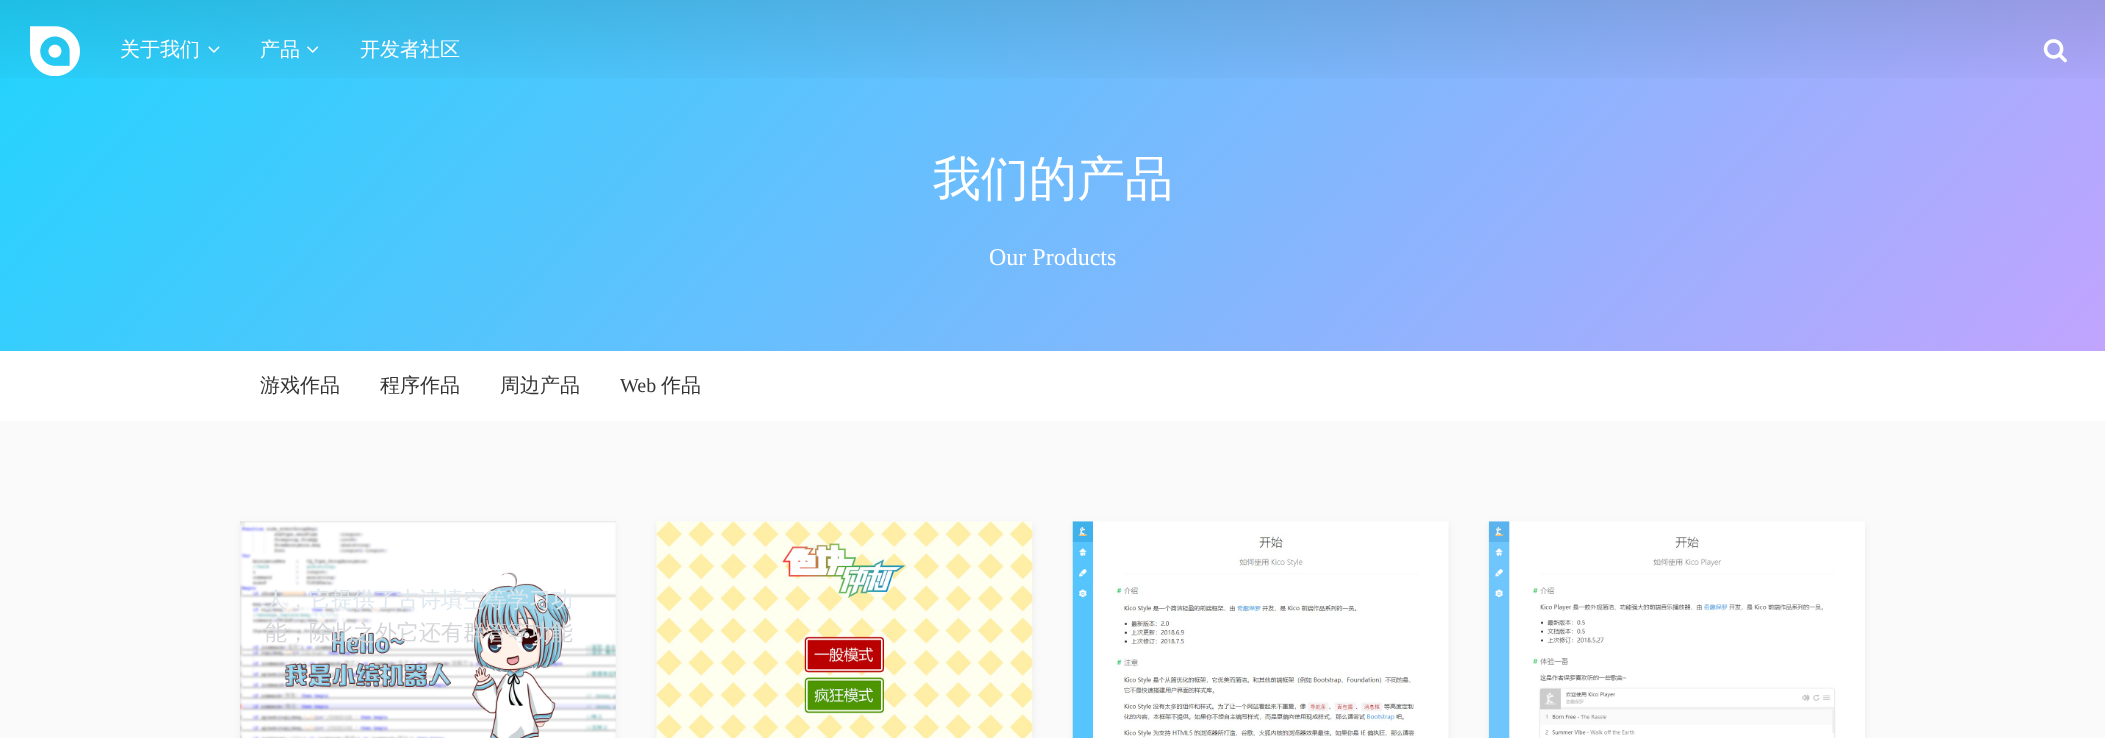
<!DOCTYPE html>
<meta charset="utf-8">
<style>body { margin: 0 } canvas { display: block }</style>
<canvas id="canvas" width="2105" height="738"></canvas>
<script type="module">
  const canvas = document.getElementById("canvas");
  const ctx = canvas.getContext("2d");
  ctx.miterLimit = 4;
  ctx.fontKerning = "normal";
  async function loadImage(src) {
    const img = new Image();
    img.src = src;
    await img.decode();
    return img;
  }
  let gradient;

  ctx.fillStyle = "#ffffff";
  ctx.fillRect(0, 0, 2105, 738);
  gradient = ctx.createLinearGradient(1721, 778, 384, -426);
  gradient.addColorStop(0, "#c1a4fe");
  gradient.addColorStop(1, "#21d4fd");
  ctx.fillStyle = gradient;
  ctx.fillRect(0, 0, 2105, 351);
  gradient = ctx.createLinearGradient(1053, 100, 1053, 0);
  gradient.addColorStop(0, "rgba(0, 0, 0, 0)");
  gradient.addColorStop(1, "rgba(0, 0, 0, 0.1)");
  ctx.fillStyle = gradient;
  ctx.fillRect(0, 0, 2105, 78);
  ctx.drawImage(await loadImage("img1.png"), 30, 26, 50, 50);
  ctx.font = "500 20px WenQuanYi Zen Hei";
  ctx.fillStyle = "#ffffff";
  ctx.fillText("关于我们", 120, 56);
  ctx.drawImage(await loadImage("img2.png"), 208, 46, 12, 7);
  ctx.fillText("产品", 260, 56);
  ctx.drawImage(await loadImage("img3.png"), 307, 46, 12, 7);
  ctx.fillText("开发者社区", 360, 56);
  ctx.drawImage(await loadImage("img4.png"), 2043, 39, 24, 24);
  ctx.font = "500 48px WenQuanYi Zen Hei";
  ctx.fillText("我们的产品", 933, 195);
  ctx.font = "24px Liberation Serif";
  ctx.fillText("Our Products", 989, 265);
  ctx.font = "500 20px WenQuanYi Zen Hei";
  ctx.fillStyle = "#353535";
  ctx.fillText("游戏作品", 260, 392);
  ctx.fillText("程序作品", 380, 392);
  ctx.fillText("周边产品", 500, 392);
  ctx.font = "20px Liberation Serif";
  ctx.fillText("Web", 620, 392);
  ctx.font = "500 20px WenQuanYi Zen Hei";
  ctx.fillText("作品", 661, 392);
  ctx.fillStyle = "#fafafa";
  ctx.fillRect(0, 421, 2105, 317);
  ctx.fillStyle = "rgba(0, 0, 0, 0.06)";
  ctx.filter = "blur(3px)";
  ctx.beginPath();
  ctx.rect(240, 524, 376, 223);
  ctx.fill();
  ctx.filter = "none";
  ctx.drawImage(await loadImage("img5.png"), 240, 521, 376, 217);
  ctx.font = "500 22px WenQuanYi Zen Hei";
  ctx.fillStyle = "#dee8ee";
  ctx.fillText("人，它提供了古诗填空等学习功", 265, 607);
  ctx.fillStyle = "#d5d6d9";
  ctx.fillText("能，除此之外它还有群管等功能", 265, 640);
  ctx.fillStyle = "rgba(0, 0, 0, 0.06)";
  ctx.filter = "blur(3px)";
  ctx.beginPath();
  ctx.rect(656, 524, 377, 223);
  ctx.fill();
  ctx.filter = "none";
  ctx.drawImage(await loadImage("img6.png"), 656, 521, 377, 217);
  ctx.filter = "blur(3px)";
  ctx.beginPath();
  ctx.rect(1073, 524, 376, 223);
  ctx.fill();
  ctx.filter = "none";
  ctx.drawImage(await loadImage("img7.png"), 1072, 521, 377, 217);
  ctx.filter = "blur(3px)";
  ctx.beginPath();
  ctx.rect(1489, 524, 376, 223);
  ctx.fill();
  ctx.filter = "none";
  ctx.drawImage(await loadImage("img8.png"), 1488, 521, 377, 217);
</script>
